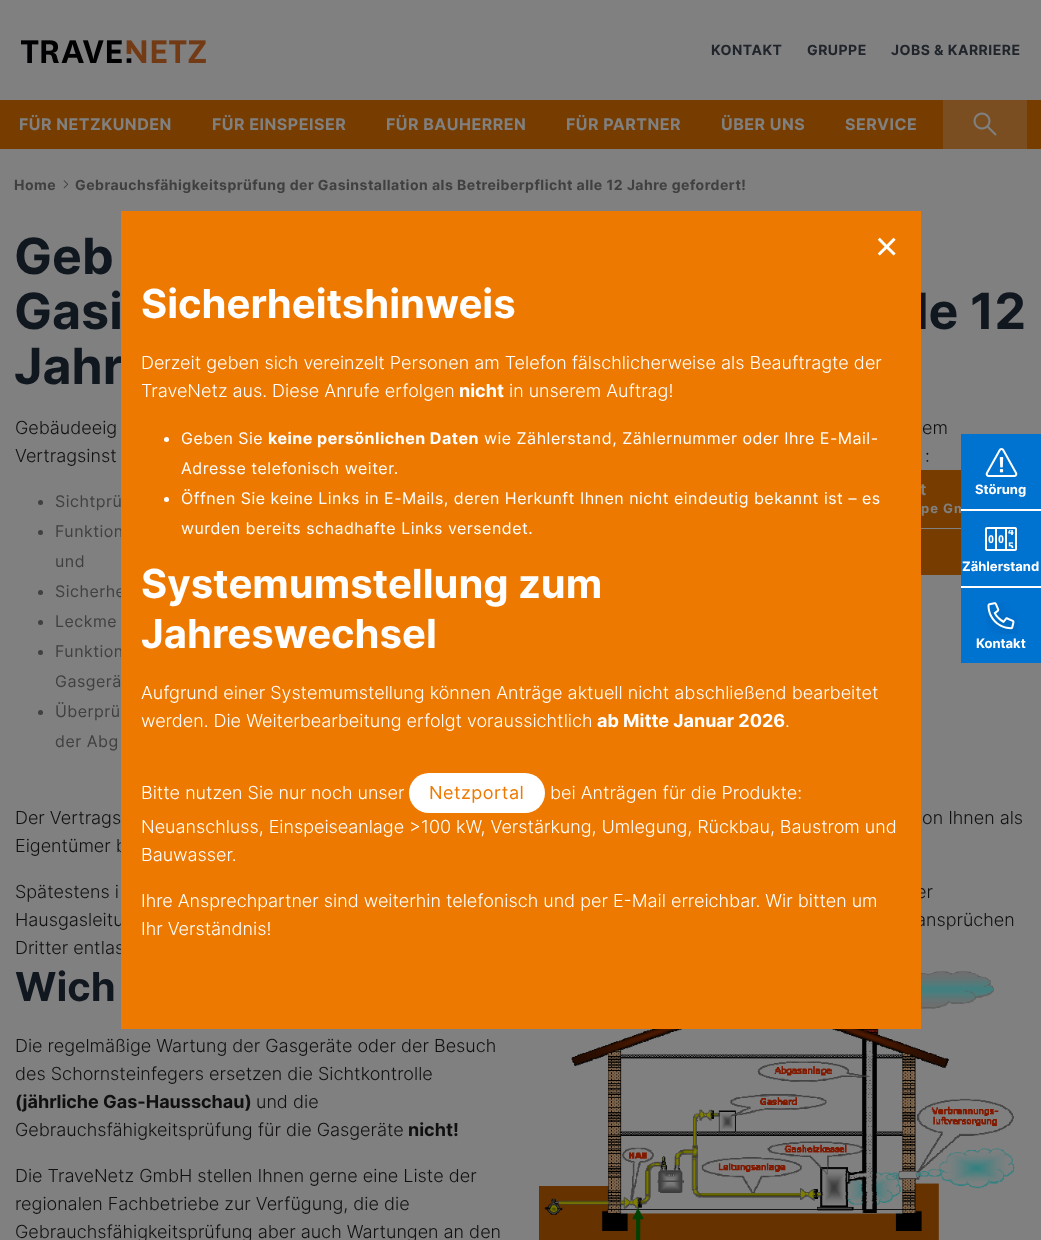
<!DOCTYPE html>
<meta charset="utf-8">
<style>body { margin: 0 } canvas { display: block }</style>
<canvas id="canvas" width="1041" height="1240"></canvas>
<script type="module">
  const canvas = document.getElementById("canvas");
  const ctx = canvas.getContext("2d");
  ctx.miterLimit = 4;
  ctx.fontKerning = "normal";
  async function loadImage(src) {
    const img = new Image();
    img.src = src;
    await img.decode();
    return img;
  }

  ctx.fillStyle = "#808080";
  ctx.fillRect(0, 0, 1041, 1240);
  ctx.drawImage(await loadImage("img1.png"), 21, 40, 185, 23);
  ctx.letterSpacing = "0.5px";
  ctx.font = "bold 14px Inter";
  ctx.fillStyle = "#20252c";
  ctx.fillText("KONTAKT", 711, 55);
  ctx.fillText("GRUPPE", 807, 55);
  ctx.fillText("JOBS & KARRIERE", 891, 55);
  ctx.fillStyle = "#773d00";
  ctx.fillRect(0, 100, 1041, 49);
  ctx.font = "bold 16px Inter";
  ctx.fillStyle = "#808080";
  ctx.fillText("FÜR NETZKUNDEN", 19, 130);
  ctx.fillText("FÜR EINSPEISER", 212, 130);
  ctx.fillText("FÜR BAUHERREN", 386, 130);
  ctx.fillText("FÜR PARTNER", 566, 130);
  ctx.fillText("ÜBER UNS", 721, 130);
  ctx.fillText("SERVICE", 845, 130);
  ctx.fillStyle = "#7a4e20";
  ctx.fillRect(943, 100, 84, 49);
  ctx.drawImage(await loadImage("img2.png"), 973, 112, 24, 24);
  ctx.font = "bold 14px Inter";
  ctx.fillStyle = "#404040";
  ctx.fillText("Home", 14, 190);
  ctx.drawImage(await loadImage("img3.png"), 63, 180, 6, 9);
  ctx.fillText("Gebrauchsfähigkeitsprüfung der Gasinstallation als Betreiberpflicht alle 12 Jahre gefordert!", 75, 190);
  ctx.letterSpacing = "0px";
  ctx.font = "bold 50px Inter";
  ctx.fillStyle = "#11171f";
  ctx.fillText("Geb", 14, 274);
  ctx.fillText("Gasi", 14, 329);
  ctx.fillText("le 12", 915, 329);
  ctx.fillText("Jahr", 14, 384);
  ctx.font = "300 18px Inter";
  ctx.fillStyle = "#110f0f";
  ctx.fillText("Gebäudeeig", 15, 434);
  ctx.fillText("em", 922, 434);
  ctx.fillText("Vertragsinst", 15, 462);
  ctx.fillText(":", 925, 462);
  ctx.fillStyle = "#404040";
  ctx.beginPath();
  ctx.arc(40.5, 502.5, 2.5, 0, Math.PI * 2);
  ctx.fill();
  ctx.letterSpacing = "0.5px";
  ctx.font = "16px Inter";
  ctx.fillText("Sichtprü", 55, 507);
  ctx.beginPath();
  ctx.arc(40.5, 532.5, 2.5, 0, Math.PI * 2);
  ctx.fill();
  ctx.fillText("Funktion", 55, 537);
  ctx.fillText("und", 55, 567);
  ctx.beginPath();
  ctx.arc(40.5, 592.5, 2.5, 0, Math.PI * 2);
  ctx.fill();
  ctx.fillText("Sicherhe", 55, 597);
  ctx.beginPath();
  ctx.arc(40.5, 622.5, 2.5, 0, Math.PI * 2);
  ctx.fill();
  ctx.fillText("Leckme", 55, 627);
  ctx.beginPath();
  ctx.arc(40.5, 652.5, 2.5, 0, Math.PI * 2);
  ctx.fill();
  ctx.fillText("Funktion", 55, 657);
  ctx.fillText("Gasgerä", 55, 687);
  ctx.beginPath();
  ctx.arc(40.5, 712.5, 2.5, 0, Math.PI * 2);
  ctx.fill();
  ctx.fillText("Überprü", 55, 717);
  ctx.fillText("der Abg", 55, 747);
  ctx.fillStyle = "#773d00";
  ctx.fillRect(921, 470, 40, 105);
  ctx.fillStyle = "#808080";
  ctx.fillRect(921, 528, 40, 1);
  ctx.letterSpacing = "1px";
  ctx.font = "bold 16px Inter";
  ctx.fillText("t", 920, 495);
  ctx.font = "bold 13px Inter";
  ctx.fillText("pe Gm", 921, 513);
  ctx.letterSpacing = "0px";
  ctx.font = "300 18px Inter";
  ctx.fillStyle = "#110f0f";
  ctx.fillText("Der Vertrags", 15, 824);
  ctx.fillText("on Ihnen als", 922, 824);
  ctx.fillText("Eigentümer b", 15, 852);
  ctx.fillText("Spätestens i", 15, 898);
  ctx.fillText("er", 916, 898);
  ctx.fillText("Hausgasleitu", 15, 926);
  ctx.fillText("ansprüchen", 916, 926);
  ctx.fillText("Dritter entlas", 15, 954);
  ctx.font = "bold 40px Inter";
  ctx.fillStyle = "#11171f";
  ctx.fillText("Wich", 15, 1001);
  ctx.font = "300 18px Inter";
  ctx.fillStyle = "#110f0f";
  ctx.fillText("Die regelmäßige Wartung der Gasgeräte oder der Besuch", 15, 1052);
  ctx.fillText("des Schornsteinfegers ersetzen die Sichtkontrolle", 15, 1080);
  ctx.font = "bold 18px Inter";
  ctx.fillText("(jährliche Gas-Hausschau)", 15, 1108);
  ctx.font = "300 18px Inter";
  ctx.fillText("und die", 256, 1108);
  ctx.fillText("Gebrauchsfähigkeitsprüfung für die Gasgeräte", 15, 1136);
  ctx.font = "bold 18px Inter";
  ctx.fillText("nicht!", 408, 1136);
  ctx.font = "300 18px Inter";
  ctx.fillText("Die TraveNetz GmbH stellen Ihnen gerne eine Liste der", 15, 1182);
  ctx.fillText("regionalen Fachbetriebe zur Verfügung, die die", 15, 1210);
  ctx.fillText("Gebrauchsfähigkeitsprüfung aber auch Wartungen an den", 15, 1238);
  ctx.drawImage(await loadImage("img4.png"), 539, 971, 476, 269);
  ctx.fillStyle = "#ee7900";
  ctx.fillRect(121, 211, 800, 818);
  ctx.font = "40px Liberation Sans";
  ctx.fillStyle = "#ffffff";
  ctx.fillText("×", 875, 260);
  ctx.font = "bold 40px Inter";
  ctx.fillText("Sicherheitshinweis", 141, 318);
  ctx.font = "300 18px Inter";
  ctx.fillText("Derzeit geben sich vereinzelt Personen am Telefon fälschlicherweise als Beauftragte der", 141, 369);
  ctx.fillText("TraveNetz aus. Diese Anrufe erfolgen", 141, 397);
  ctx.font = "bold 18px Inter";
  ctx.fillText("nicht", 459, 397);
  ctx.font = "300 18px Inter";
  ctx.fillText("in unserem Auftrag!", 509, 397);
  ctx.beginPath();
  ctx.arc(166.5, 439.5, 2.5, 0, Math.PI * 2);
  ctx.fill();
  ctx.letterSpacing = "0.5px";
  ctx.font = "16px Inter";
  ctx.fillText("Geben Sie", 181, 444);
  ctx.font = "bold 16px Inter";
  ctx.fillText("keine persönlichen Daten", 268, 444);
  ctx.font = "16px Inter";
  ctx.fillText("wie Zählerstand, Zählernummer oder Ihre E-Mail-", 484, 444);
  ctx.fillText("Adresse telefonisch weiter.", 181, 474);
  ctx.beginPath();
  ctx.arc(166.5, 499.5, 2.5, 0, Math.PI * 2);
  ctx.fill();
  ctx.fillText("Öffnen Sie keine Links in E-Mails, deren Herkunft Ihnen nicht eindeutig bekannt ist – es", 181, 504);
  ctx.fillText("wurden bereits schadhafte Links versendet.", 181, 534);
  ctx.letterSpacing = "0px";
  ctx.font = "bold 40px Inter";
  ctx.fillText("Systemumstellung zum", 141, 598);
  ctx.fillText("Jahreswechsel", 141, 648);
  ctx.font = "300 18px Inter";
  ctx.fillText("Aufgrund einer Systemumstellung können Anträge aktuell nicht abschließend bearbeitet", 141, 699);
  ctx.fillText("werden. Die Weiterbearbeitung erfolgt voraussichtlich", 141, 727);
  ctx.font = "bold 18px Inter";
  ctx.fillText("ab Mitte Januar 2026", 597, 727);
  ctx.font = "300 18px Inter";
  ctx.fillText(".", 785, 727);
  ctx.fillText("Bitte nutzen Sie nur noch unser", 141, 799);
  ctx.beginPath();
  ctx.roundRect(409, 773, 136, 40, 20);
  ctx.fill();
  ctx.letterSpacing = "0.5px";
  ctx.font = "18px Inter";
  ctx.fillStyle = "#ee7900";
  ctx.fillText("Netzportal", 429, 799);
  ctx.letterSpacing = "0px";
  ctx.font = "300 18px Inter";
  ctx.fillStyle = "#ffffff";
  ctx.fillText("bei Anträgen für die Produkte:", 550, 799);
  ctx.fillText("Neuanschluss, Einspeiseanlage >100 kW, Verstärkung, Umlegung, Rückbau, Baustrom und", 141, 833);
  ctx.fillText("Bauwasser.", 141, 861);
  ctx.fillText("Ihre Ansprechpartner sind weiterhin telefonisch und per E-Mail erreichbar. Wir bitten um", 141, 907);
  ctx.fillText("Ihr Verständnis!", 141, 935);
  ctx.fillRect(961, 509, 80, 79);
  ctx.fillStyle = "#0072d0";
  ctx.fillRect(961, 434, 80, 75);
  ctx.drawImage(await loadImage("img5.png"), 985, 448, 33, 29);
  ctx.font = "bold 13px Inter";
  ctx.fillStyle = "#ffffff";
  ctx.fillText("Störung", 975, 494);
  ctx.fillStyle = "#0072d0";
  ctx.fillRect(961, 511, 80, 75);
  ctx.drawImage(await loadImage("img6.png"), 985, 527, 32, 24);
  ctx.fillStyle = "#ffffff";
  ctx.fillText("Zählerstand", 962, 571);
  ctx.fillStyle = "#0072d0";
  ctx.fillRect(961, 588, 80, 75);
  ctx.drawImage(await loadImage("img7.png"), 986, 602, 32, 32);
  ctx.fillStyle = "#ffffff";
  ctx.fillText("Kontakt", 976, 648);
</script>
